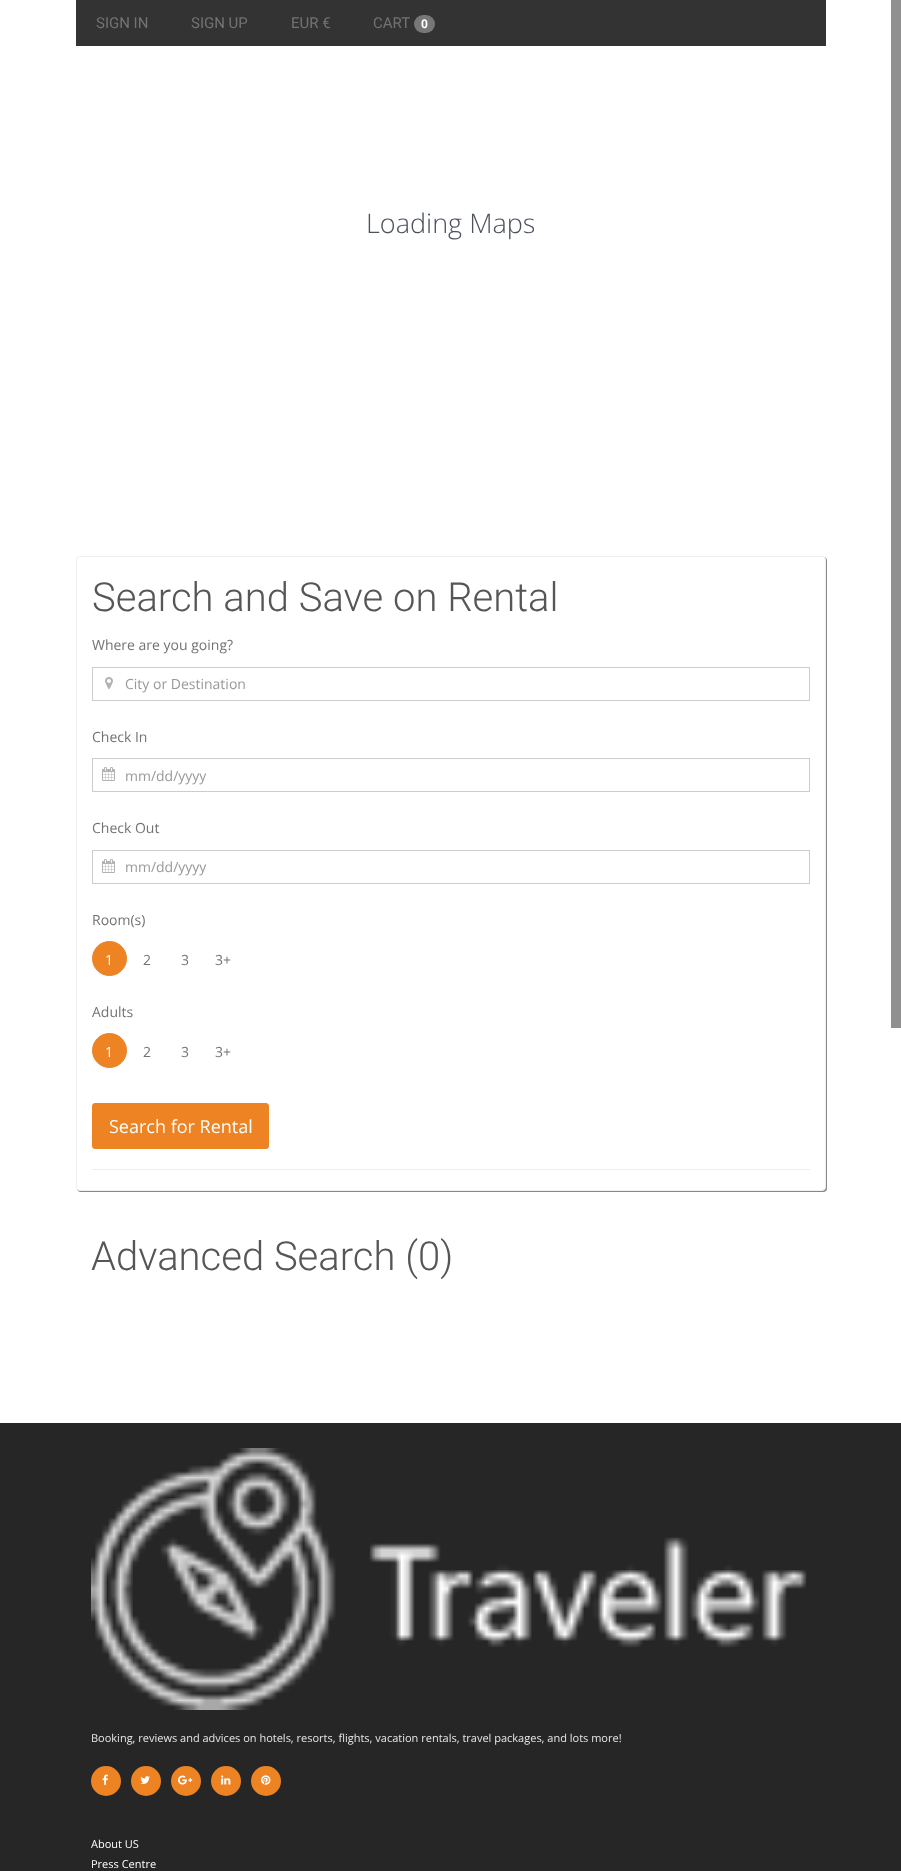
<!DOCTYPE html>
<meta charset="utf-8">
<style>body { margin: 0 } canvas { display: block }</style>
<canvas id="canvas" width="901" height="1871"></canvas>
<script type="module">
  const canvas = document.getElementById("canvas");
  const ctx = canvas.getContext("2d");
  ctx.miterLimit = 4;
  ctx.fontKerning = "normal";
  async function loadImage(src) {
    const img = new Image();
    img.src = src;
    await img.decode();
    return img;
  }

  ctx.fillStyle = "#ffffff";
  ctx.fillRect(0, 0, 901, 1871);
  ctx.fillStyle = "#333333";
  ctx.fillRect(76, 0, 750, 46);
  ctx.font = "15px Roboto";
  ctx.fillStyle = "#737373";
  ctx.fillText("SIGN IN", 96, 28);
  ctx.fillText("SIGN UP", 191, 28);
  ctx.fillText("EUR €", 291, 28);
  ctx.fillText("CART", 373, 28);
  ctx.fillStyle = "#777777";
  ctx.beginPath();
  ctx.roundRect(414, 15, 21, 18, 9);
  ctx.fill();
  ctx.font = "bold 12px Roboto";
  ctx.fillStyle = "#ffffff";
  ctx.fillText("0", 421, 28);
  ctx.fillStyle = "#909090";
  ctx.fillRect(891, 0, 10, 1028);
  ctx.font = "300 27px Open Sans";
  ctx.fillStyle = "#4c535d";
  ctx.fillText("Loading Maps", 366, 233);
  ctx.fillStyle = "#888888";
  ctx.filter = "blur(0.5px)";
  ctx.beginPath();
  ctx.roundRect(77, 557, 750, 635, 4);
  ctx.fill();
  ctx.filter = "none";
  ctx.fillStyle = "#ffffff";
  ctx.beginPath();
  ctx.roundRect(76.5, 556.5, 749, 634, 3.5);
  ctx.fill();
  ctx.strokeStyle = "#eeeeee";
  ctx.stroke();
  ctx.font = "300 40px Roboto";
  ctx.fillStyle = "#565656";
  ctx.fillText("Search and Save on Rental", 92, 611);
  ctx.font = "14px Open Sans";
  ctx.fillStyle = "#737373";
  ctx.fillText("Where are you going?", 92, 650);
  ctx.strokeStyle = "#cccccc";
  ctx.strokeRect(92.5, 667.5, 717, 33);
  ctx.drawImage(await loadImage("img1.png"), 105, 677, 8, 12);
  ctx.fillStyle = "#999999";
  ctx.fillText("City or Destination", 125, 689);
  ctx.fillStyle = "#737373";
  ctx.fillText("Check In", 92, 742);
  ctx.strokeRect(92.5, 758.5, 717, 33);
  ctx.drawImage(await loadImage("img2.png"), 102, 767, 13, 14);
  ctx.fillStyle = "#999999";
  ctx.fillText("mm/dd/yyyy", 125, 781);
  ctx.fillStyle = "#737373";
  ctx.fillText("Check Out", 92, 833);
  ctx.strokeRect(92.5, 850.5, 717, 33);
  ctx.drawImage(await loadImage("img2.png"), 102, 859, 13, 14);
  ctx.fillStyle = "#999999";
  ctx.fillText("mm/dd/yyyy", 125, 872);
  ctx.fillStyle = "#737373";
  ctx.fillText("Room(s)", 92, 925);
  ctx.fillStyle = "#ed8323";
  ctx.beginPath();
  ctx.arc(109.5, 958.5, 17, 0, Math.PI * 2);
  ctx.fill();
  ctx.strokeStyle = "#ed8323";
  ctx.stroke();
  ctx.fillStyle = "#ffffff";
  ctx.fillText("1", 105, 965);
  ctx.fillStyle = "#737373";
  ctx.fillText("2", 143, 965);
  ctx.fillText("3", 181, 965);
  ctx.fillText("3+", 215, 965);
  ctx.fillText("Adults", 92, 1017);
  ctx.fillStyle = "#ed8323";
  ctx.beginPath();
  ctx.arc(109.5, 1050.5, 17, 0, Math.PI * 2);
  ctx.fill();
  ctx.stroke();
  ctx.fillStyle = "#ffffff";
  ctx.fillText("1", 105, 1057);
  ctx.fillStyle = "#737373";
  ctx.fillText("2", 143, 1057);
  ctx.fillText("3", 181, 1057);
  ctx.fillText("3+", 215, 1057);
  ctx.fillStyle = "#ed8323";
  ctx.beginPath();
  ctx.roundRect(92.5, 1103.5, 176, 45, 2.5);
  ctx.fill();
  ctx.stroke();
  ctx.font = "18px Open Sans";
  ctx.fillStyle = "#ffffff";
  ctx.fillText("Search for Rental", 109, 1133);
  ctx.fillStyle = "#eeeeee";
  ctx.fillRect(92, 1169, 718, 1);
  ctx.font = "300 40px Roboto";
  ctx.fillStyle = "#565656";
  ctx.fillText("Advanced Search (0)", 91, 1270);
  ctx.fillStyle = "#262626";
  ctx.fillRect(0, 1423, 901, 448);
  ctx.drawImage(await loadImage("img3.png"), 91, 1448, 716, 262);
  ctx.font = "11px Open Sans";
  ctx.fillStyle = "#e6e6e6";
  ctx.fillText("Booking, reviews and advices on hotels, resorts, flights, vacation rentals, travel packages, and lots more!", 91, 1742);
  ctx.fillStyle = "#ed8323";
  ctx.beginPath();
  ctx.arc(106, 1781, 15, 0, Math.PI * 2);
  ctx.fill();
  ctx.drawImage(await loadImage("img4.png"), 102, 1774, 6, 11);
  ctx.beginPath();
  ctx.arc(146, 1781, 15, 0, Math.PI * 2);
  ctx.fill();
  ctx.drawImage(await loadImage("img5.png"), 140, 1776, 10, 8);
  ctx.beginPath();
  ctx.arc(186, 1781, 15, 0, Math.PI * 2);
  ctx.fill();
  ctx.drawImage(await loadImage("img6.png"), 178, 1775, 15, 10);
  ctx.beginPath();
  ctx.arc(226, 1781, 15, 0, Math.PI * 2);
  ctx.fill();
  ctx.drawImage(await loadImage("img7.png"), 221, 1775, 10, 10);
  ctx.beginPath();
  ctx.arc(266, 1781, 15, 0, Math.PI * 2);
  ctx.fill();
  ctx.drawImage(await loadImage("img8.png"), 261, 1775, 10, 10);
  ctx.fillStyle = "#ffffff";
  ctx.fillText("About US", 91, 1848);
  ctx.fillText("Press Centre", 91, 1868);
</script>
